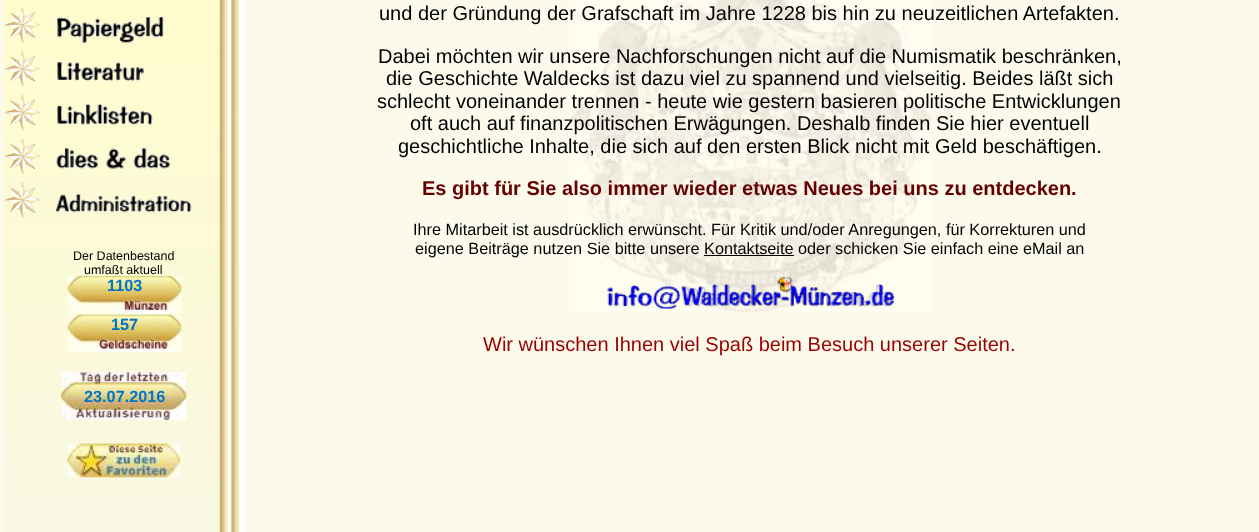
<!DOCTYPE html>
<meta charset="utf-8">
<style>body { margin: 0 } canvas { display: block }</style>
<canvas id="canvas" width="1259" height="532"></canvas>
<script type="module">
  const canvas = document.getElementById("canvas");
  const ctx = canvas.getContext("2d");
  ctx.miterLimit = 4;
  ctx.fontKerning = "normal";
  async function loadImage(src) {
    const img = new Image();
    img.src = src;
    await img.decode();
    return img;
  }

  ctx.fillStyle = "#fcfbeb";
  ctx.fillRect(0, 0, 1259, 532);
  ctx.drawImage(await loadImage("img1.png"), 3, 0, 241, 532);
  ctx.drawImage(await loadImage("img2.png"), 4, 7, 37, 36);
  ctx.drawImage(await loadImage("img3.png"), 56, 16, 108, 28);
  ctx.drawImage(await loadImage("img4.png"), 4, 51, 37, 36);
  ctx.drawImage(await loadImage("img5.png"), 57, 62, 87, 20);
  ctx.drawImage(await loadImage("img6.png"), 4, 95, 37, 36);
  ctx.drawImage(await loadImage("img7.png"), 57, 103, 96, 22);
  ctx.drawImage(await loadImage("img8.png"), 4, 139, 37, 35);
  ctx.drawImage(await loadImage("img9.png"), 56, 147, 115, 22);
  ctx.drawImage(await loadImage("img10.png"), 4, 182, 37, 36);
  ctx.drawImage(await loadImage("img11.png"), 56, 193, 136, 20);
  ctx.font = "12.5px Liberation Sans";
  ctx.fillStyle = "#000000";
  ctx.fillText("Der Datenbestand", 73, 260);
  ctx.fillText("umfaßt aktuell", 84, 274);
  ctx.drawImage(await loadImage("img12.png"), 67, 276, 115, 38);
  ctx.font = "bold 16.25px Liberation Sans";
  ctx.fillStyle = "#0074c5";
  ctx.fillText("1103", 107, 291);
  ctx.drawImage(await loadImage("img13.png"), 67, 314, 115, 39);
  ctx.fillText("157", 111, 330);
  ctx.drawImage(await loadImage("img14.png"), 61, 372, 126, 48);
  ctx.fillText("23.07.2016", 84, 402);
  ctx.drawImage(await loadImage("img15.png"), 67, 443, 113, 35);
  ctx.drawImage(await loadImage("img16.png"), 569, 0, 363, 312);
  ctx.font = "20px Liberation Sans";
  ctx.fillStyle = "#000000";
  ctx.fillText("und der Gründung der Grafschaft im Jahre 1228 bis hin zu neuzeitlichen Artefakten.", 379, 20);
  ctx.fillText("Dabei möchten wir unsere Nachforschungen nicht auf die Numismatik beschränken,", 378, 63);
  ctx.fillText("die Geschichte Waldecks ist dazu viel zu spannend und vielseitig. Beides läßt sich", 386, 85);
  ctx.fillText("schlecht voneinander trennen - heute wie gestern basieren politische Entwicklungen", 377, 108);
  ctx.fillText("oft auch auf finanzpolitischen Erwägungen. Deshalb finden Sie hier eventuell", 410, 130);
  ctx.fillText("geschichtliche Inhalte, die sich auf den ersten Blick nicht mit Geld beschäftigen.", 398, 153);
  ctx.font = "bold 20px Liberation Sans";
  ctx.fillStyle = "#660000";
  ctx.fillText("Es gibt für Sie also immer wieder etwas Neues bei uns zu entdecken.", 422, 195);
  ctx.font = "16.25px Liberation Sans";
  ctx.fillStyle = "#000000";
  ctx.fillText("Ihre Mitarbeit ist ausdrücklich erwünscht. Für Kritik und/oder Anregungen, für Korrekturen und", 413, 235);
  ctx.fillText("eigene Beiträge nutzen Sie bitte unsere Kontaktseite oder schicken Sie einfach eine eMail an", 415, 254);
  ctx.fillRect(704, 255, 90, 1);
  ctx.drawImage(await loadImage("img17.png"), 607, 277, 287, 32);
  ctx.font = "20px Liberation Sans";
  ctx.fillStyle = "#990000";
  ctx.fillText("Wir wünschen Ihnen viel Spaß beim Besuch unserer Seiten.", 483, 351);
</script>
